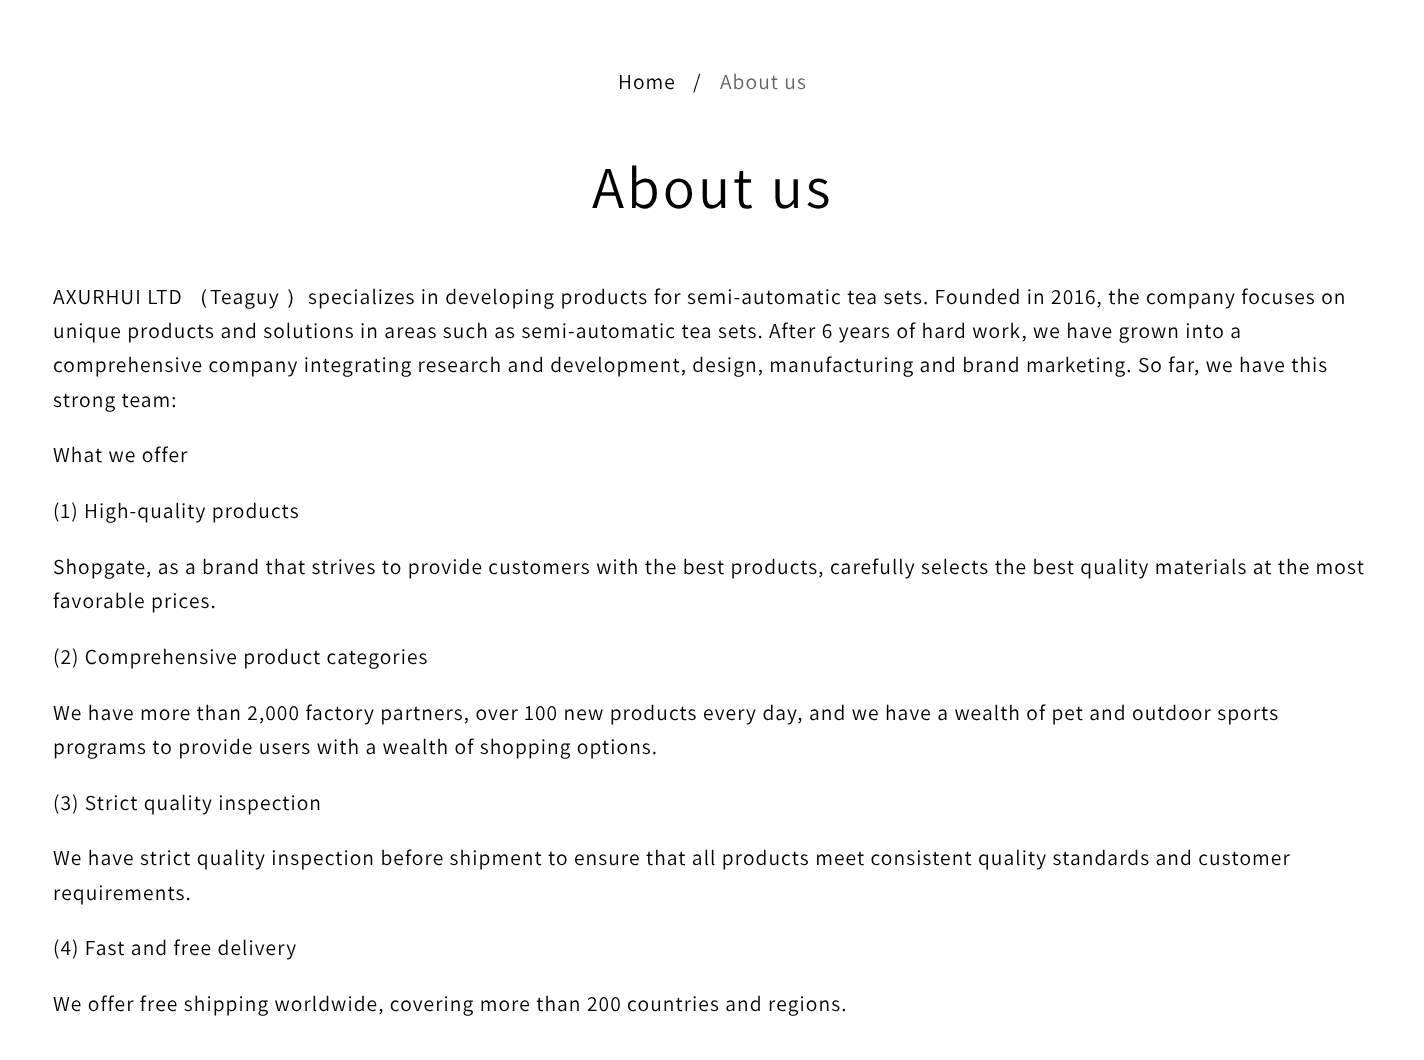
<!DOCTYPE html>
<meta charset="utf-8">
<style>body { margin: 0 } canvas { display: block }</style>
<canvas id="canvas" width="1424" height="1060"></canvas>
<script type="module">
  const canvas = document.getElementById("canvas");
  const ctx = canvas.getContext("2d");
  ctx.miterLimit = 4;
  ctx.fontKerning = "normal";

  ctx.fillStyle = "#ffffff";
  ctx.fillRect(0, 0, 1424, 1060);
  ctx.letterSpacing = "1.07px";
  ctx.font = "200 21.45px Assistant";
  ctx.fillStyle = "#000000";
  ctx.fillText("Home", 618, 89);
  ctx.fillText("/", 693, 89);
  ctx.fillStyle = "#666666";
  ctx.fillText("About us", 720, 89);
  ctx.letterSpacing = "3px";
  ctx.font = "200 59.5px Assistant";
  ctx.fillStyle = "#000000";
  ctx.fillText("About us", 592, 208);
  ctx.letterSpacing = "1.07px";
  ctx.font = "200 21.45px Assistant";
  ctx.fillText("AXURHUI LTD", 53, 304);
  ctx.font = "500 21.45px WenQuanYi Zen Hei";
  ctx.fillText("（", 188, 304);
  ctx.font = "200 21.45px Assistant";
  ctx.fillText("Teaguy", 210, 304);
  ctx.font = "500 21.45px WenQuanYi Zen Hei";
  ctx.fillText("）", 285, 304);
  ctx.font = "200 21.45px Assistant";
  ctx.fillText("specializes in developing products for semi-automatic tea sets. Founded in 2016, the company focuses on", 308, 304);
  ctx.fillText("unique products and solutions in areas such as semi-automatic tea sets. After 6 years of hard work, we have grown into a", 53, 338);
  ctx.fillText("comprehensive company integrating research and development, design, manufacturing and brand marketing. So far, we have this", 53, 372);
  ctx.fillText("strong team:", 53, 407);
  ctx.fillText("What we offer", 53, 462);
  ctx.fillText("(1) High-quality products", 53, 518);
  ctx.fillText("Shopgate, as a brand that strives to provide customers with the best products, carefully selects the best quality materials at the most", 53, 574);
  ctx.fillText("favorable prices.", 53, 608);
  ctx.fillText("(2) Comprehensive product categories", 53, 664);
  ctx.fillText("We have more than 2,000 factory partners, over 100 new products every day, and we have a wealth of pet and outdoor sports", 53, 720);
  ctx.fillText("programs to provide users with a wealth of shopping options.", 53, 754);
  ctx.fillText("(3) Strict quality inspection", 53, 810);
  ctx.fillText("We have strict quality inspection before shipment to ensure that all products meet consistent quality standards and customer", 53, 865);
  ctx.fillText("requirements.", 53, 900);
  ctx.fillText("(4) Fast and free delivery", 53, 955);
  ctx.fillText("We offer free shipping worldwide, covering more than 200 countries and regions.", 53, 1011);
</script>
